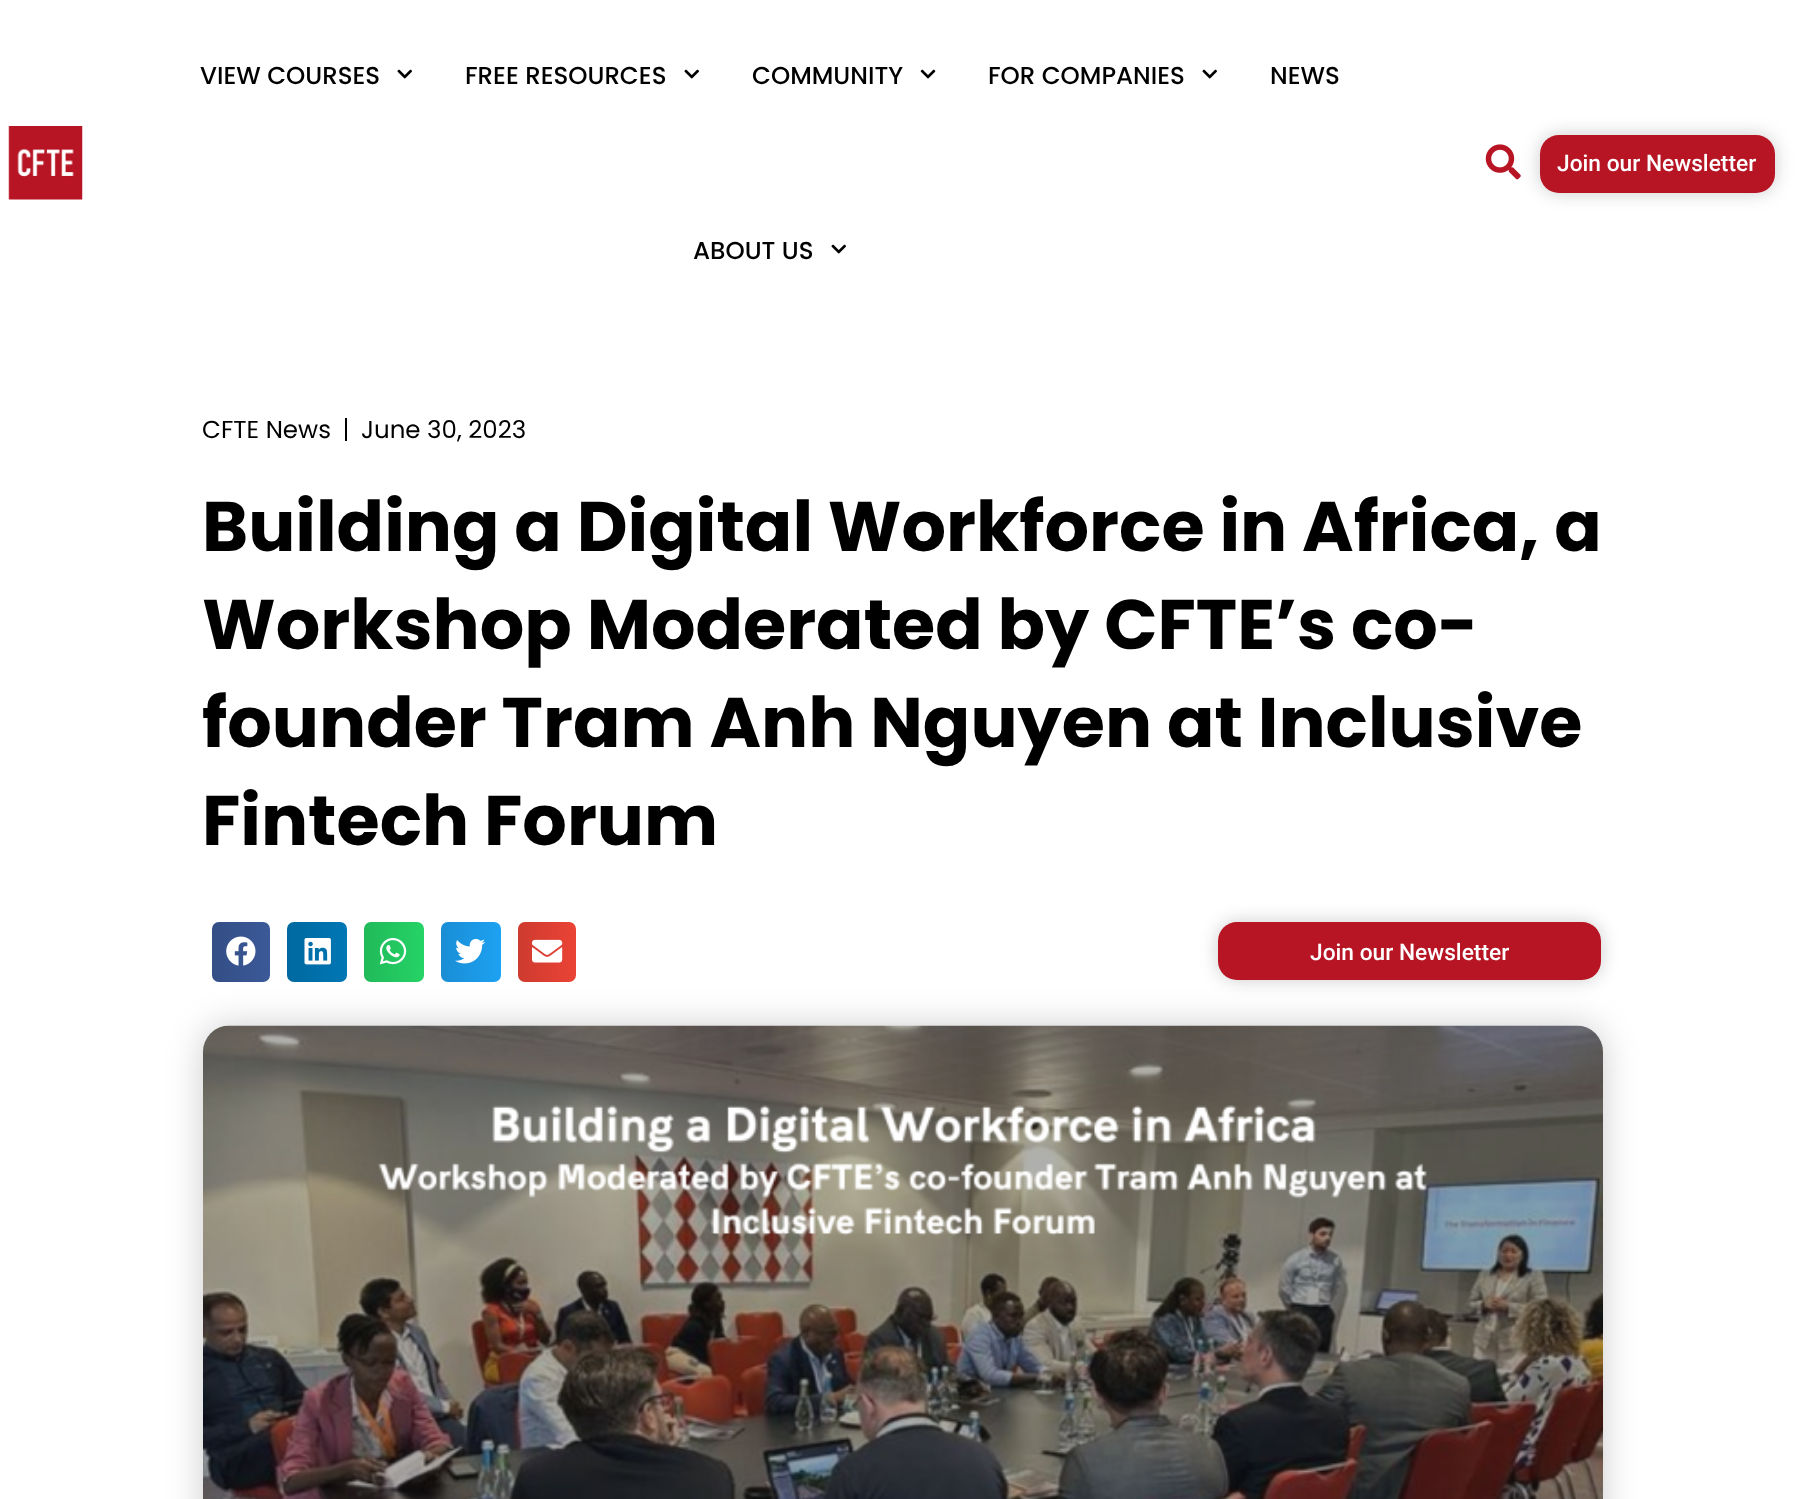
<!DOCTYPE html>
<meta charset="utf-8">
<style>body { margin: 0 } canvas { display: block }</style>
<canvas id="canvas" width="1804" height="1499"></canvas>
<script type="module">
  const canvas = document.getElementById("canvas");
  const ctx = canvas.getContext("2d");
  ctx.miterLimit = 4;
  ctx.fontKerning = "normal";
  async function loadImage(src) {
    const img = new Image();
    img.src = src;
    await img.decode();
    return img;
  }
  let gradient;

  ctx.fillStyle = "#ffffff";
  ctx.fillRect(0, 0, 1804, 1499);
  ctx.drawImage(await loadImage("img1.png"), 8, 126, 75, 74);
  ctx.font = "500 24.5px Poppins";
  ctx.fillStyle = "#000000";
  ctx.fillText("VIEW COURSES", 200, 84);
  ctx.drawImage(await loadImage("img2.png"), 397, 69, 15, 10);
  ctx.fillText("FREE RESOURCES", 465, 84);
  ctx.drawImage(await loadImage("img2.png"), 684, 69, 15, 10);
  ctx.fillText("COMMUNITY", 752, 84);
  ctx.drawImage(await loadImage("img3.png"), 920, 69, 16, 10);
  ctx.fillText("FOR COMPANIES", 988, 84);
  ctx.drawImage(await loadImage("img2.png"), 1202, 69, 15, 10);
  ctx.fillText("NEWS", 1270, 84);
  ctx.fillText("ABOUT US", 693, 259);
  ctx.drawImage(await loadImage("img2.png"), 831, 244, 15, 10);
  ctx.drawImage(await loadImage("img4.png"), 1485, 144, 36, 36);
  ctx.fillStyle = "rgba(0, 0, 0, 0.2)";
  ctx.filter = "blur(9px)";
  ctx.beginPath();
  ctx.roundRect(1540, 135, 235, 58, 19);
  ctx.fill();
  ctx.filter = "none";
  ctx.fillStyle = "#b71524";
  ctx.beginPath();
  ctx.roundRect(1540, 135, 235, 58, 19);
  ctx.fill();
  ctx.font = "500 22.75px Roboto";
  ctx.fillStyle = "#ffffff";
  ctx.fillText("Join our Newsletter", 1557, 171);
  ctx.font = "24.5px Poppins";
  ctx.fillStyle = "#000000";
  ctx.fillText("CFTE News", 202, 438);
  ctx.fillRect(345, 418, 2, 23);
  ctx.fillText("June 30, 2023", 361, 438);
  ctx.font = "bold 70px Poppins";
  ctx.fillText("Building a Digital Workforce in Africa, a", 202, 551);
  ctx.fillText("Workshop Moderated by CFTE’s co-", 202, 649);
  ctx.fillText("founder Tram Anh Nguyen at Inclusive", 202, 747);
  ctx.fillText("Fintech Forum", 202, 845);
  ctx.fillStyle = "#3b5998";
  ctx.beginPath();
  ctx.roundRect(212, 922, 58, 60, 7);
  ctx.fill();
  gradient = ctx.createLinearGradient(212, 952, 270, 952);
  gradient.addColorStop(0, "rgba(0, 0, 0, 0.12)");
  gradient.addColorStop(1, "rgba(0, 0, 0, 0)");
  ctx.fillStyle = gradient;
  ctx.beginPath();
  ctx.roundRect(212, 922, 58, 60, 7);
  ctx.fill();
  ctx.drawImage(await loadImage("img5.png"), 226, 936, 30, 30);
  ctx.fillStyle = "#0077b5";
  ctx.beginPath();
  ctx.roundRect(287, 922, 60, 60, 7);
  ctx.fill();
  gradient = ctx.createLinearGradient(287, 952, 347, 952);
  gradient.addColorStop(0, "rgba(0, 0, 0, 0.12)");
  gradient.addColorStop(1, "rgba(0, 0, 0, 0)");
  ctx.fillStyle = gradient;
  ctx.beginPath();
  ctx.roundRect(287, 922, 60, 60, 7);
  ctx.fill();
  ctx.drawImage(await loadImage("img6.png"), 304, 938, 27, 27);
  ctx.fillStyle = "#25d366";
  ctx.beginPath();
  ctx.roundRect(364, 922, 60, 60, 7);
  ctx.fill();
  gradient = ctx.createLinearGradient(364, 952, 424, 952);
  gradient.addColorStop(0, "rgba(0, 0, 0, 0.12)");
  gradient.addColorStop(1, "rgba(0, 0, 0, 0)");
  ctx.fillStyle = gradient;
  ctx.beginPath();
  ctx.roundRect(364, 922, 60, 60, 7);
  ctx.fill();
  ctx.drawImage(await loadImage("img7.png"), 379, 938, 28, 27);
  ctx.fillStyle = "#1da1f2";
  ctx.beginPath();
  ctx.roundRect(441, 922, 60, 60, 7);
  ctx.fill();
  gradient = ctx.createLinearGradient(441, 952, 501, 952);
  gradient.addColorStop(0, "rgba(0, 0, 0, 0.12)");
  gradient.addColorStop(1, "rgba(0, 0, 0, 0)");
  ctx.fillStyle = gradient;
  ctx.beginPath();
  ctx.roundRect(441, 922, 60, 60, 7);
  ctx.fill();
  ctx.drawImage(await loadImage("img8.png"), 455, 938, 30, 26);
  ctx.fillStyle = "#ea4335";
  ctx.beginPath();
  ctx.roundRect(518, 922, 58, 60, 7);
  ctx.fill();
  gradient = ctx.createLinearGradient(518, 952, 576, 952);
  gradient.addColorStop(0, "rgba(0, 0, 0, 0.12)");
  gradient.addColorStop(1, "rgba(0, 0, 0, 0)");
  ctx.fillStyle = gradient;
  ctx.beginPath();
  ctx.roundRect(518, 922, 58, 60, 7);
  ctx.fill();
  ctx.drawImage(await loadImage("img9.png"), 532, 939, 31, 24);
  ctx.fillStyle = "rgba(0, 0, 0, 0.2)";
  ctx.filter = "blur(9px)";
  ctx.beginPath();
  ctx.roundRect(1218, 922, 383, 58, 19);
  ctx.fill();
  ctx.filter = "none";
  ctx.fillStyle = "#b71524";
  ctx.beginPath();
  ctx.roundRect(1218, 922, 383, 58, 19);
  ctx.fill();
  ctx.font = "500 22.75px Roboto";
  ctx.fillStyle = "#ffffff";
  ctx.fillText("Join our Newsletter", 1310, 960);
  ctx.fillStyle = "rgba(0, 0, 0, 0.2)";
  ctx.filter = "blur(17.5px)";
  ctx.beginPath();
  ctx.roundRect(203, 1026, 1400, 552, 26);
  ctx.fill();
  ctx.filter = "none";
  ctx.drawImage(await loadImage("img10.png"), 203, 1025, 1400, 474);
</script>
